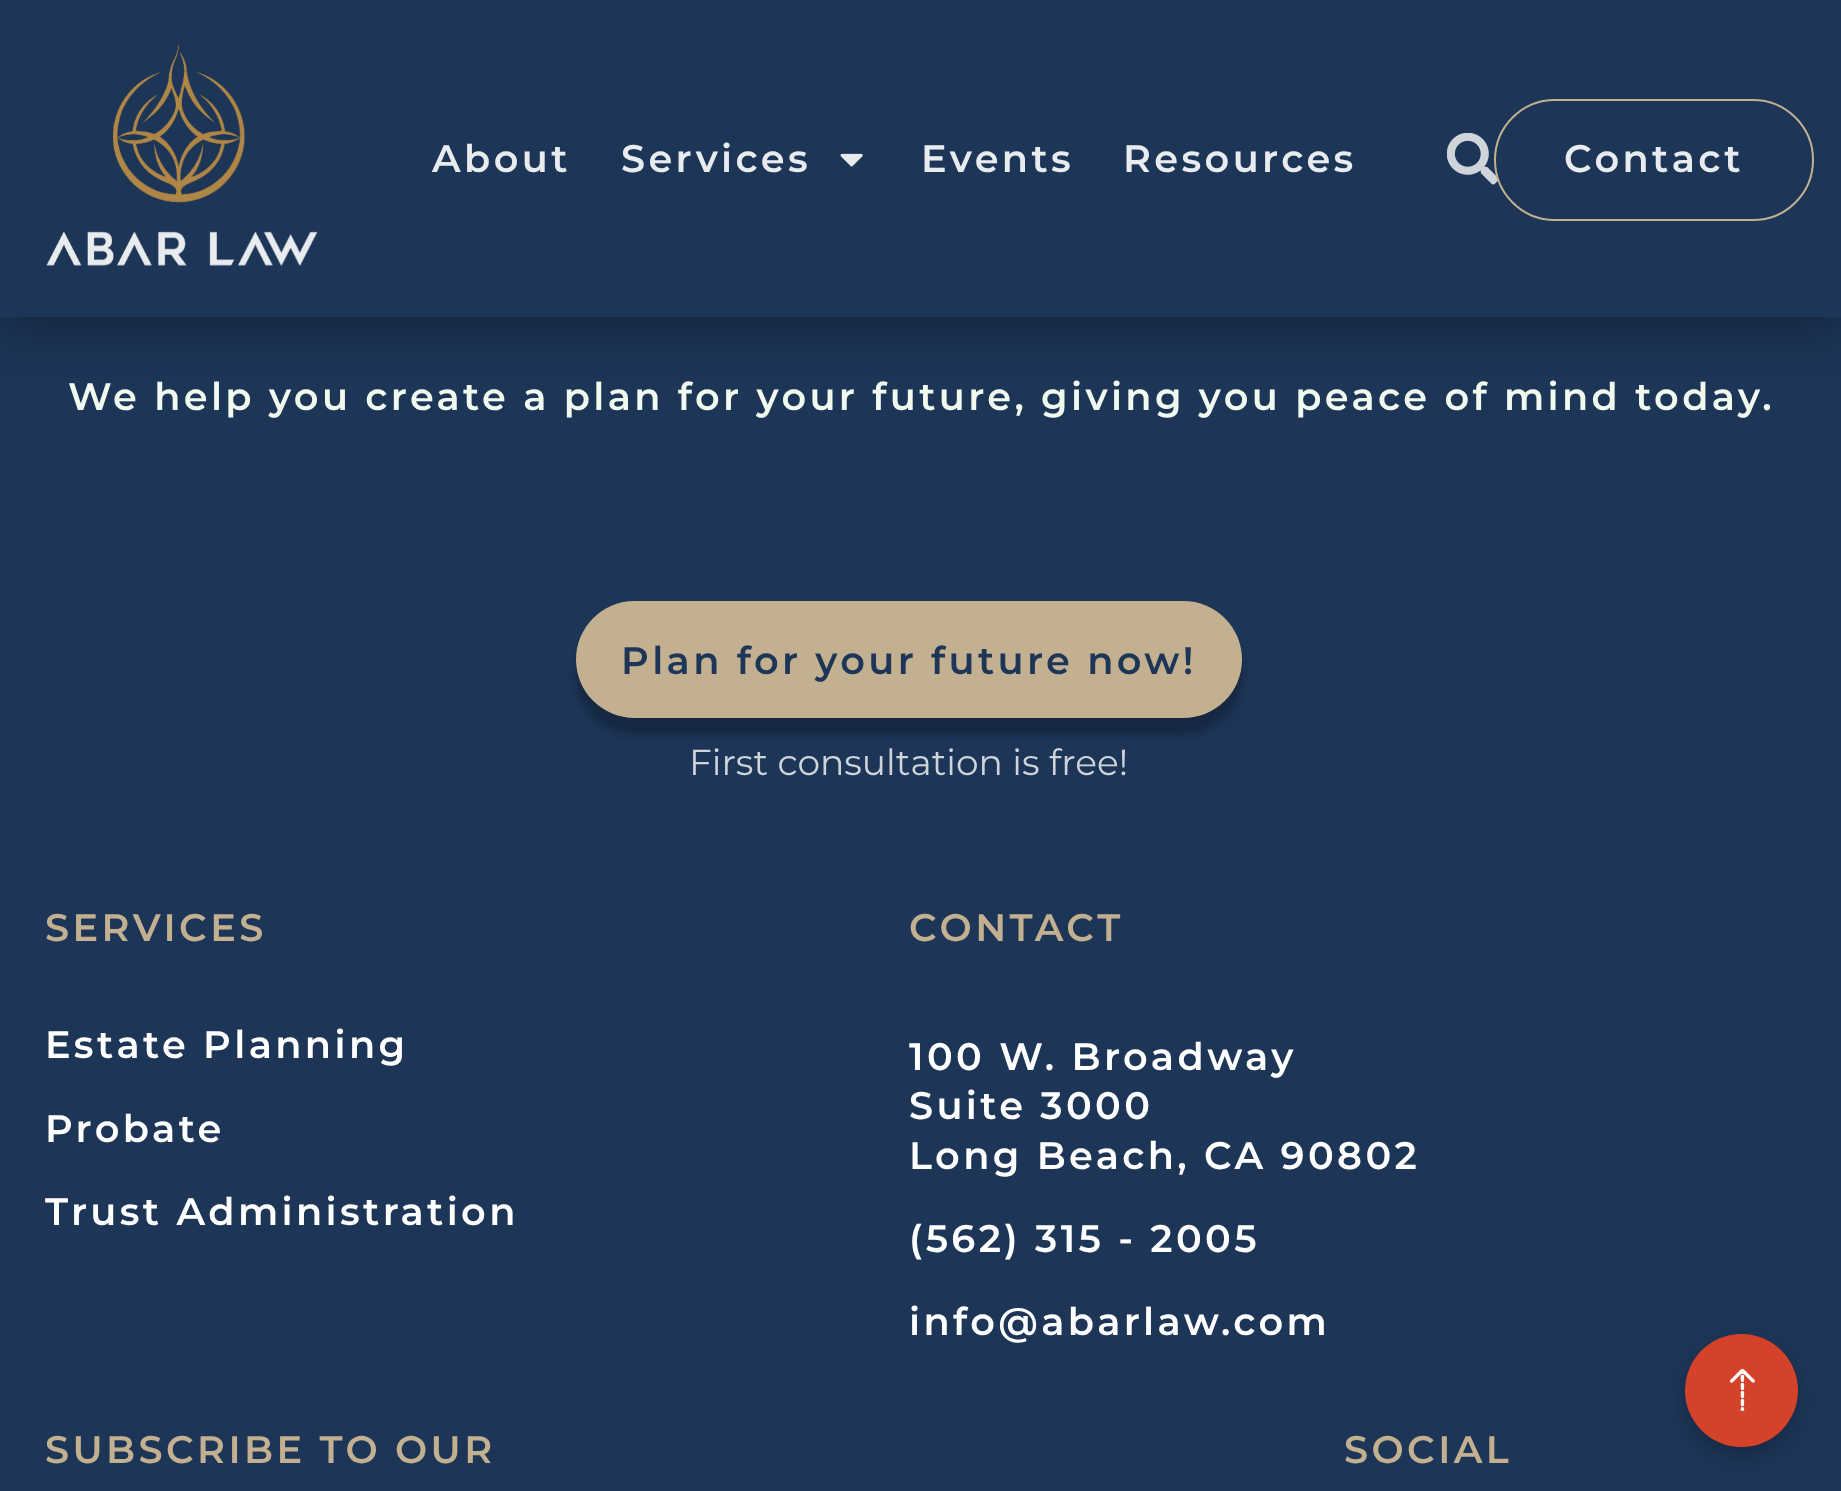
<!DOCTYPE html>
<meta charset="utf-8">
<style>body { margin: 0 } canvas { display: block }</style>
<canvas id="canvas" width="1841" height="1491"></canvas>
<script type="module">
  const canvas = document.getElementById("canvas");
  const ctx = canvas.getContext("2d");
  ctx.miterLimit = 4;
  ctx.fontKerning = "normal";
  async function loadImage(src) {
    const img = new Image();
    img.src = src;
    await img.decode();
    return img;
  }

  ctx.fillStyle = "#1d3557";
  ctx.fillRect(0, 0, 1841, 1491);
  ctx.fillStyle = "rgba(0, 0, 0, 0.25)";
  ctx.filter = "blur(22.5px)";
  ctx.beginPath();
  ctx.rect(0, 16, 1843, 317);
  ctx.fill();
  ctx.filter = "none";
  ctx.fillStyle = "#1d3557";
  ctx.fillRect(0, 0, 1841, 317);
  ctx.drawImage(await loadImage("img1.png"), 46, 45, 272, 221);
  ctx.letterSpacing = "3.38px";
  ctx.font = "600 38.25px Montserrat";
  ctx.fillStyle = "#e9ecef";
  ctx.fillText("About", 432, 172);
  ctx.fillText("Services", 621, 172);
  ctx.drawImage(await loadImage("img2.png"), 840, 153, 23, 14);
  ctx.fillText("Events", 921, 172);
  ctx.fillText("Resources", 1123, 172);
  ctx.drawImage(await loadImage("img3.png"), 1447, 133, 52, 52);
  ctx.beginPath();
  ctx.roundRect(1495, 100, 318, 120, 60);
  ctx.strokeStyle = "#c3b091";
  ctx.lineWidth = 2;
  ctx.stroke();
  ctx.fillText("Contact", 1564, 172);
  ctx.fillStyle = "#f1faee";
  ctx.fillText("We help you create a plan for your future, giving you peace of mind today.", 68, 410);
  ctx.fillStyle = "rgba(0, 0, 0, 0.25)";
  ctx.filter = "blur(4.5px)";
  ctx.beginPath();
  ctx.roundRect(576, 617, 666, 117, 58.5);
  ctx.fill();
  ctx.filter = "none";
  ctx.fillStyle = "#c3b091";
  ctx.beginPath();
  ctx.roundRect(576, 601, 666, 117, 58.5);
  ctx.fill();
  ctx.fillStyle = "#1d3557";
  ctx.fillText("Plan for your future now!", 621, 674);
  ctx.letterSpacing = "0px";
  ctx.font = "36px Montserrat";
  ctx.fillStyle = "#ced4da";
  ctx.fillText("First consultation is free!", 689, 775);
  ctx.letterSpacing = "3.38px";
  ctx.font = "600 38.25px Montserrat";
  ctx.fillStyle = "#c3b091";
  ctx.fillText("SERVICES", 45, 941);
  ctx.fillStyle = "#ffffff";
  ctx.fillText("Estate Planning", 45, 1058);
  ctx.fillText("Probate", 45, 1142);
  ctx.fillText("Trust Administration", 45, 1225);
  ctx.fillStyle = "#c3b091";
  ctx.fillText("CONTACT", 909, 941);
  ctx.fillStyle = "#ffffff";
  ctx.fillText("100 W. Broadway", 909, 1070);
  ctx.fillText("Suite 3000", 909, 1119);
  ctx.fillText("Long Beach, CA 90802", 909, 1169);
  ctx.fillText("(562) 315 - 2005", 909, 1252);
  ctx.fillText("info@abarlaw.com", 909, 1335);
  ctx.fillStyle = "#c3b091";
  ctx.fillText("SUBSCRIBE TO OUR", 45, 1463);
  ctx.fillText("SOCIAL", 1344, 1463);
  ctx.fillStyle = "rgba(0, 0, 0, 0.2)";
  ctx.filter = "blur(9px)";
  ctx.beginPath();
  ctx.roundRect(1685, 1343, 113, 113, 56.5);
  ctx.fill();
  ctx.filter = "none";
  ctx.fillStyle = "#d44229";
  ctx.beginPath();
  ctx.arc(1741.5, 1390.5, 56.5, 0, Math.PI * 2);
  ctx.fill();
  ctx.drawImage(await loadImage("img4.png"), 1730, 1369, 25, 42);
</script>
